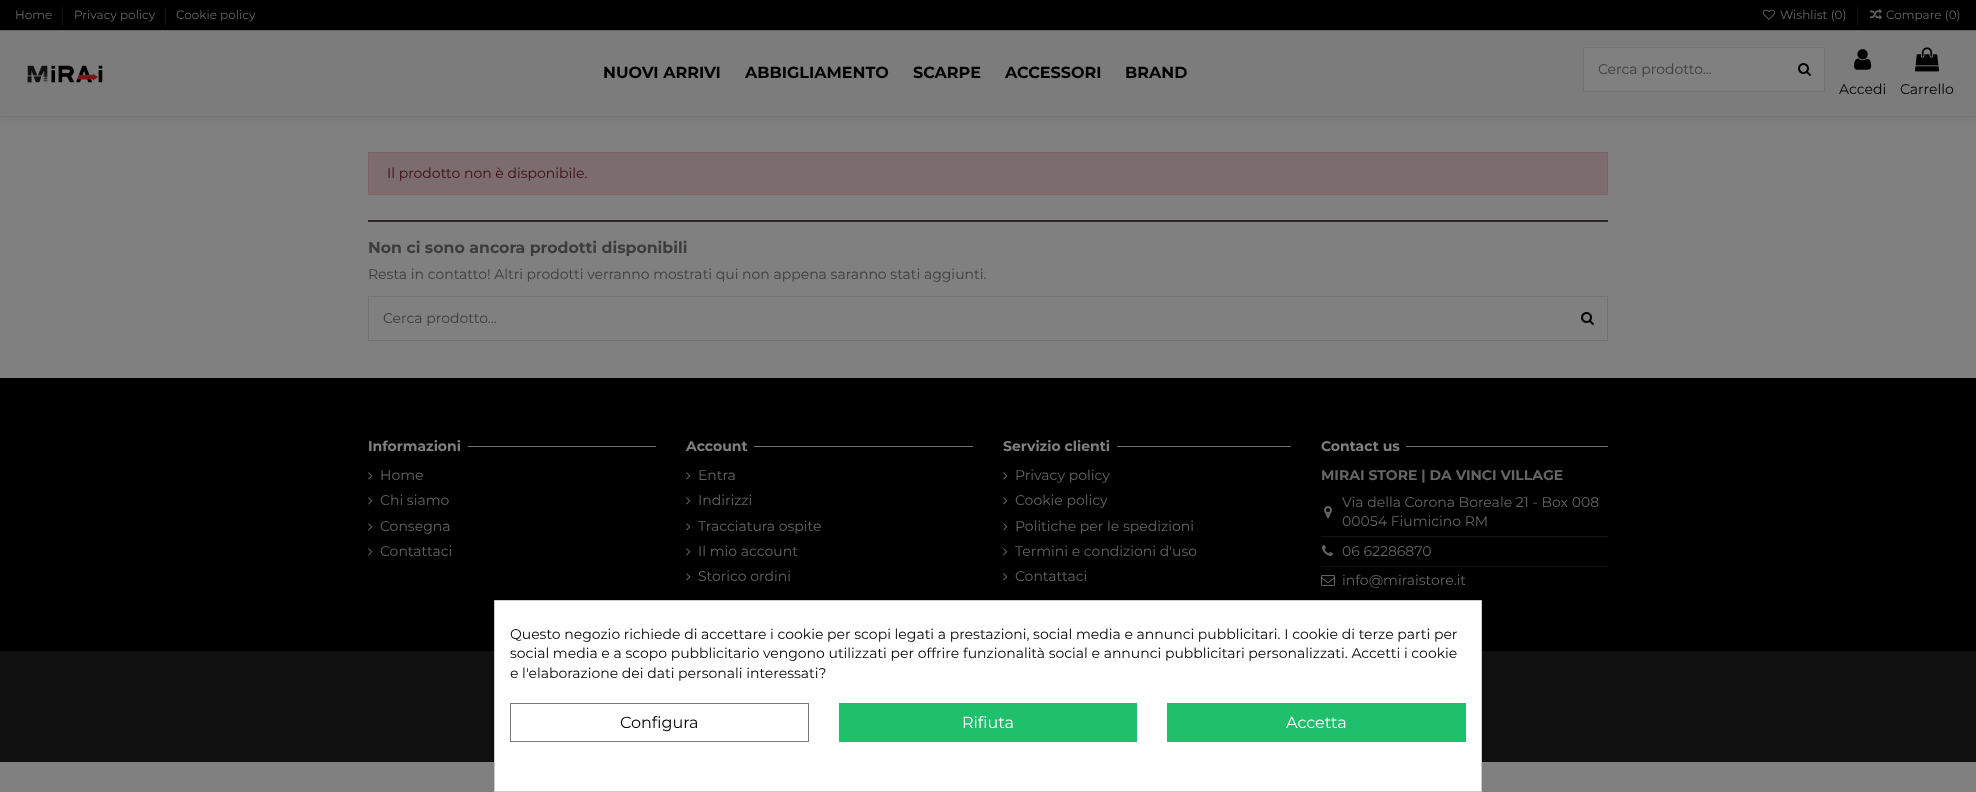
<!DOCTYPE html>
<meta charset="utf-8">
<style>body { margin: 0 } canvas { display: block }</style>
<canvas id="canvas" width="1976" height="792"></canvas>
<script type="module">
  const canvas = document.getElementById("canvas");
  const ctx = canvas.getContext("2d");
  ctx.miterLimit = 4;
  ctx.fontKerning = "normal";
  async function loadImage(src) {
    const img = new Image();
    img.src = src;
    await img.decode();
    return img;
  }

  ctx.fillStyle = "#808080";
  ctx.fillRect(0, 0, 1976, 792);
  ctx.fillStyle = "rgba(31, 29, 29, 0.17)";
  ctx.filter = "blur(5.5px)";
  ctx.beginPath();
  ctx.rect(0, -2, 1976, 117);
  ctx.fill();
  ctx.filter = "none";
  ctx.fillStyle = "#7c7c7c";
  ctx.fillRect(0, 31, 1976, 85);
  ctx.fillStyle = "#727272";
  ctx.fillRect(0, 116, 1976, 1);
  ctx.fillStyle = "#000000";
  ctx.fillRect(0, 0, 1976, 30);
  ctx.fillStyle = "#686868";
  ctx.fillRect(0, 30, 1976, 1);
  ctx.font = "12px Montserrat";
  ctx.fillStyle = "#656565";
  ctx.fillText("Home", 15, 19);
  ctx.fillStyle = "#141414";
  ctx.fillRect(62, 7, 1, 18);
  ctx.fillStyle = "#656565";
  ctx.fillText("Privacy policy", 74, 19);
  ctx.fillStyle = "#141414";
  ctx.fillRect(165, 7, 1, 18);
  ctx.fillStyle = "#656565";
  ctx.fillText("Cookie policy", 176, 19);
  ctx.drawImage(await loadImage("img1.png"), 1763, 9, 12, 11);
  ctx.fillText("Wishlist (0)", 1780, 19);
  ctx.fillStyle = "#141414";
  ctx.fillRect(1857, 7, 1, 18);
  ctx.drawImage(await loadImage("img2.png"), 1870, 9, 12, 11);
  ctx.fillStyle = "#656565";
  ctx.fillText("Compare (0)", 1886, 19);
  ctx.drawImage(await loadImage("img3.png"), 27, 65, 76, 18);
  ctx.font = "bold 16px Montserrat";
  ctx.fillStyle = "#000000";
  ctx.fillText("NUOVI ARRIVI", 603, 78);
  ctx.fillText("ABBIGLIAMENTO", 745, 78);
  ctx.fillText("SCARPE", 913, 78);
  ctx.fillText("ACCESSORI", 1005, 78);
  ctx.fillText("BRAND", 1125, 78);
  ctx.fillStyle = "#808080";
  ctx.beginPath();
  ctx.rect(1583.5, 47.5, 241, 44);
  ctx.fill();
  ctx.strokeStyle = "#727272";
  ctx.stroke();
  ctx.font = "14px Montserrat";
  ctx.fillStyle = "#3c3c3c";
  ctx.fillText("Cerca prodotto...", 1598, 74);
  ctx.drawImage(await loadImage("img4.png"), 1798, 63, 13, 13);
  ctx.drawImage(await loadImage("img5.png"), 1854, 49, 18, 21);
  ctx.fillStyle = "#000000";
  ctx.fillText("Accedi", 1839, 94);
  ctx.drawImage(await loadImage("img6.png"), 1915, 47, 24, 25);
  ctx.fillText("Carrello", 1900, 94);
  ctx.fillStyle = "#7c6c6d";
  ctx.beginPath();
  ctx.rect(368.5, 152.5, 1239, 42);
  ctx.fill();
  ctx.strokeStyle = "#7b6366";
  ctx.stroke();
  ctx.fillStyle = "#390e12";
  ctx.fillText("Il prodotto non è disponibile.", 387, 178);
  ctx.fillStyle = "#2d2828";
  ctx.fillRect(368, 220, 1240, 2);
  ctx.font = "bold 15.75px Montserrat";
  ctx.fillStyle = "#3c3c3c";
  ctx.fillText("Non ci sono ancora prodotti disponibili", 368, 253);
  ctx.font = "14px Montserrat";
  ctx.fillText("Resta in contatto! Altri prodotti verranno mostrati qui non appena saranno stati aggiunti.", 368, 279);
  ctx.strokeStyle = "#727272";
  ctx.strokeRect(368.5, 296.5, 1239, 44);
  ctx.fillText("Cerca prodotto...", 383, 323);
  ctx.drawImage(await loadImage("img4.png"), 1581, 312, 13, 13);
  ctx.fillStyle = "#000000";
  ctx.fillRect(0, 378, 1976, 273);
  ctx.font = "bold 14px Montserrat";
  ctx.fillStyle = "#808080";
  ctx.fillText("Informazioni", 368, 451);
  ctx.fillStyle = "#727272";
  ctx.fillRect(468, 446, 188, 1);
  ctx.drawImage(await loadImage("img7.png"), 368, 472, 5, 8);
  ctx.font = "14px Montserrat";
  ctx.fillStyle = "#656565";
  ctx.fillText("Home", 380, 480);
  ctx.drawImage(await loadImage("img7.png"), 368, 497, 5, 8);
  ctx.fillText("Chi siamo", 380, 505);
  ctx.drawImage(await loadImage("img7.png"), 368, 523, 5, 8);
  ctx.fillText("Consegna", 380, 531);
  ctx.drawImage(await loadImage("img7.png"), 368, 548, 5, 8);
  ctx.fillText("Contattaci", 380, 556);
  ctx.font = "bold 14px Montserrat";
  ctx.fillStyle = "#808080";
  ctx.fillText("Account", 686, 451);
  ctx.fillStyle = "#727272";
  ctx.fillRect(754, 446, 219, 1);
  ctx.drawImage(await loadImage("img7.png"), 686, 472, 5, 8);
  ctx.font = "14px Montserrat";
  ctx.fillStyle = "#656565";
  ctx.fillText("Entra", 698, 480);
  ctx.drawImage(await loadImage("img7.png"), 686, 497, 5, 8);
  ctx.fillText("Indirizzi", 698, 505);
  ctx.drawImage(await loadImage("img7.png"), 686, 523, 5, 8);
  ctx.fillText("Tracciatura ospite", 698, 531);
  ctx.drawImage(await loadImage("img7.png"), 686, 548, 5, 8);
  ctx.fillText("Il mio account", 698, 556);
  ctx.drawImage(await loadImage("img7.png"), 686, 573, 5, 8);
  ctx.fillText("Storico ordini", 698, 581);
  ctx.font = "bold 14px Montserrat";
  ctx.fillStyle = "#808080";
  ctx.fillText("Servizio clienti", 1003, 451);
  ctx.fillStyle = "#727272";
  ctx.fillRect(1117, 446, 174, 1);
  ctx.drawImage(await loadImage("img7.png"), 1003, 472, 5, 8);
  ctx.font = "14px Montserrat";
  ctx.fillStyle = "#656565";
  ctx.fillText("Privacy policy", 1015, 480);
  ctx.drawImage(await loadImage("img7.png"), 1003, 497, 5, 8);
  ctx.fillText("Cookie policy", 1015, 505);
  ctx.drawImage(await loadImage("img7.png"), 1003, 523, 5, 8);
  ctx.fillText("Politiche per le spedizioni", 1015, 531);
  ctx.drawImage(await loadImage("img7.png"), 1003, 548, 5, 8);
  ctx.fillText("Termini e condizioni d'uso", 1015, 556);
  ctx.drawImage(await loadImage("img7.png"), 1003, 573, 5, 8);
  ctx.fillText("Contattaci", 1015, 581);
  ctx.font = "bold 14px Montserrat";
  ctx.fillStyle = "#808080";
  ctx.fillText("Contact us", 1321, 451);
  ctx.fillStyle = "#727272";
  ctx.fillRect(1406, 446, 202, 1);
  ctx.fillStyle = "#656565";
  ctx.fillText("MIRAI STORE | DA VINCI VILLAGE", 1321, 480);
  ctx.drawImage(await loadImage("img8.png"), 1324, 506, 8, 12);
  ctx.font = "14px Montserrat";
  ctx.fillText("Via della Corona Boreale 21 - Box 008", 1342, 507);
  ctx.fillText("00054 Fiumicino RM", 1342, 526);
  ctx.fillStyle = "#141414";
  ctx.fillRect(1321, 536, 287, 1);
  ctx.drawImage(await loadImage("img9.png"), 1322, 545, 11, 11);
  ctx.fillStyle = "#656565";
  ctx.fillText("06 62286870", 1342, 556);
  ctx.fillStyle = "#141414";
  ctx.fillRect(1321, 566, 287, 1);
  ctx.drawImage(await loadImage("img10.png"), 1321, 575, 14, 11);
  ctx.fillStyle = "#656565";
  ctx.fillText("info@miraistore.it", 1342, 585);
  ctx.fillStyle = "#101010";
  ctx.fillRect(0, 651, 1976, 111);
  ctx.fillStyle = "#ffffff";
  ctx.beginPath();
  ctx.rect(494.5, 600.5, 987, 191);
  ctx.fill();
  ctx.strokeStyle = "#cccccc";
  ctx.stroke();
  ctx.fillStyle = "#000000";
  ctx.fillText("Questo negozio richiede di accettare i cookie per scopi legati a prestazioni, social media e annunci pubblicitari. I cookie di terze parti per", 510, 639);
  ctx.fillText("social media e a scopo pubblicitario vengono utilizzati per offrire funzionalità social e annunci pubblicitari personalizzati. Accetti i cookie", 510, 658);
  ctx.fillText("e l'elaborazione dei dati personali interessati?", 510, 678);
  ctx.strokeStyle = "#7a7a7a";
  ctx.strokeRect(510.5, 703.5, 298, 38);
  ctx.font = "16px Montserrat";
  ctx.fillText("Configura", 620, 728);
  ctx.fillStyle = "#20bf6b";
  ctx.fillRect(839, 703, 298, 39);
  ctx.fillStyle = "#ffffff";
  ctx.fillText("Rifiuta", 962, 728);
  ctx.fillStyle = "#20bf6b";
  ctx.fillRect(1167, 703, 299, 39);
  ctx.fillStyle = "#ffffff";
  ctx.fillText("Accetta", 1286, 728);
</script>
